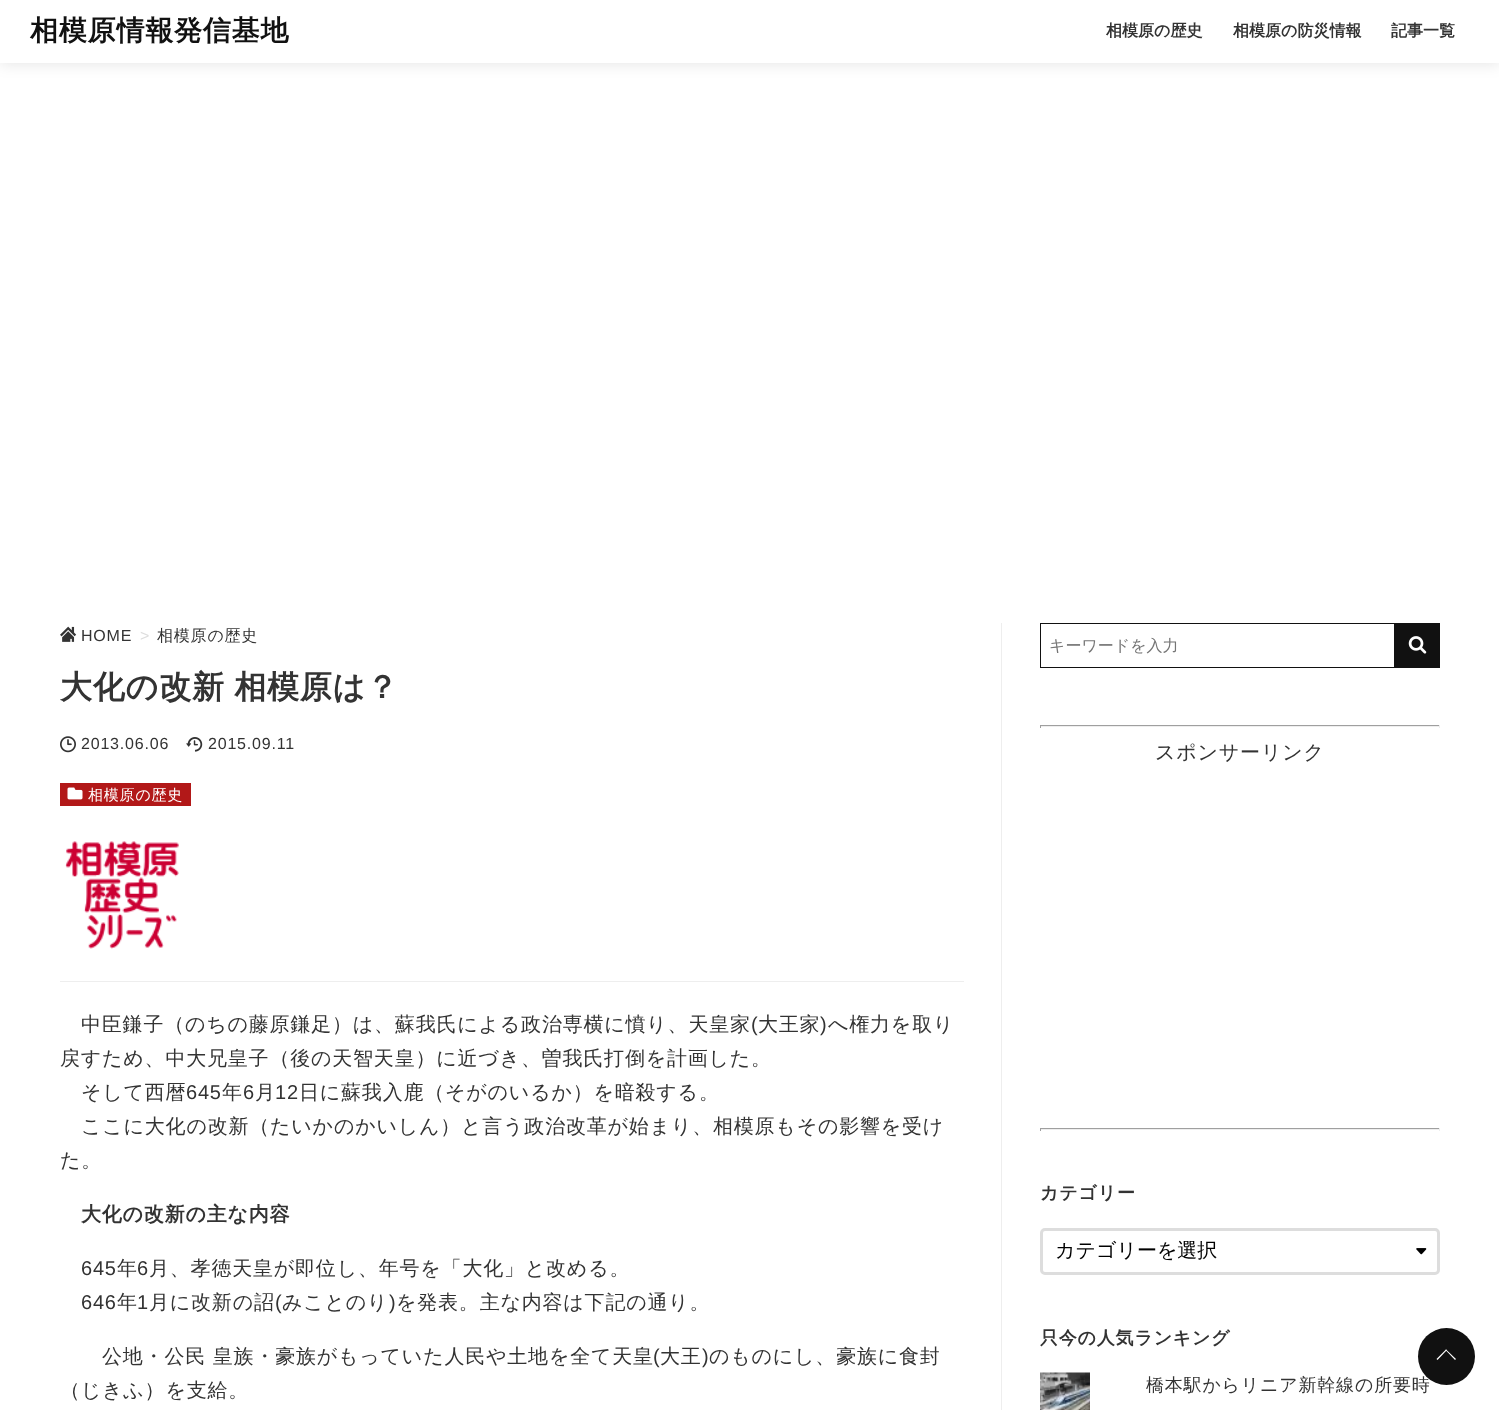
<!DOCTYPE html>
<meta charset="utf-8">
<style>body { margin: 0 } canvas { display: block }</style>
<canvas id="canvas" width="1499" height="1410"></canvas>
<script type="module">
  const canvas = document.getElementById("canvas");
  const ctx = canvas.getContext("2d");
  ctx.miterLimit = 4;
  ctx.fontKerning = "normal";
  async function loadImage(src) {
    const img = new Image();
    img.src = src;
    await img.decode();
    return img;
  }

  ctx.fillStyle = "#ffffff";
  ctx.fillRect(0, 0, 1499, 1410);
  ctx.save();
  ctx.beginPath();
  ctx.moveTo(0, 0);
  ctx.lineTo(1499, 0);
  ctx.lineTo(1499, 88);
  ctx.lineTo(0, 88);
  ctx.closePath();
  ctx.moveTo(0, 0);
  ctx.lineTo(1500, 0);
  ctx.lineTo(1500, 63);
  ctx.lineTo(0, 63);
  ctx.closePath();
  ctx.clip("evenodd");
  ctx.fillStyle = "rgba(0, 0, 0, 0.1)";
  ctx.filter = "blur(7.5px)";
  ctx.beginPath();
  ctx.rect(0, 1, 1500, 63);
  ctx.fill();
  ctx.filter = "none";
  ctx.restore();
  ctx.fillStyle = "rgba(255, 255, 255, 0.8)";
  ctx.fillRect(0, 62, 1499, 1);
  ctx.letterSpacing = "0.8px";
  ctx.font = "bold 28px WenQuanYi Zen Hei";
  ctx.fillStyle = "#111111";
  ctx.fillText("相模原情報発信基地", 30, 40);
  ctx.letterSpacing = "0px";
  ctx.font = "bold 16px WenQuanYi Zen Hei";
  ctx.fillStyle = "#333333";
  ctx.fillText("相模原の歴史", 1106, 36);
  ctx.fillText("相模原の防災情報", 1233, 36);
  ctx.fillText("記事一覧", 1391, 36);
  ctx.fillStyle = "#eeeeee";
  ctx.fillRect(1001, 623, 1, 787);
  ctx.drawImage(await loadImage("img1.png"), 60, 626, 17, 16);
  ctx.letterSpacing = "0.8px";
  ctx.font = "16px Liberation Sans";
  ctx.fillStyle = "#333333";
  ctx.fillText("HOME", 81, 641);
  ctx.fillStyle = "#dddddd";
  ctx.fillText(">", 140, 641);
  ctx.font = "500 16px WenQuanYi Zen Hei";
  ctx.fillStyle = "#333333";
  ctx.fillText("相模原の歴史", 157, 641);
  ctx.wordSpacing = "-1px";
  ctx.font = "bold 32px WenQuanYi Zen Hei";
  ctx.fillText("大化の改新 相模原は？", 60, 698);
  ctx.drawImage(await loadImage("img2.png"), 60, 736, 16, 17);
  ctx.wordSpacing = "0px";
  ctx.font = "16px Liberation Sans";
  ctx.fillText("2013.06.06", 81, 749);
  ctx.drawImage(await loadImage("img3.png"), 186, 737, 17, 15);
  ctx.fillText("2015.09.11", 208, 749);
  ctx.fillStyle = "#b21818";
  ctx.fillRect(60, 783, 131, 23);
  ctx.drawImage(await loadImage("img4.png"), 67, 787, 16, 13);
  ctx.font = "500 15px WenQuanYi Zen Hei";
  ctx.fillStyle = "#ffffff";
  ctx.fillText("相模原の歴史", 88, 800);
  ctx.drawImage(await loadImage("img5.png"), 65, 841, 114, 108);
  ctx.fillStyle = "#eeeeee";
  ctx.fillRect(60, 981, 904, 1);
  ctx.font = "500 20px WenQuanYi Zen Hei";
  ctx.fillStyle = "#333333";
  ctx.fillText("中臣鎌子（のちの藤原鎌足）は、蘇我氏による政治専横に憤り、天皇家", 81, 1031);
  ctx.font = "20px Liberation Sans";
  ctx.fillText("(", 751, 1031);
  ctx.font = "500 20px WenQuanYi Zen Hei";
  ctx.fillText("大王家", 758, 1031);
  ctx.font = "20px Liberation Sans";
  ctx.fillText(")", 820, 1031);
  ctx.font = "500 20px WenQuanYi Zen Hei";
  ctx.fillText("へ権力を取り", 828, 1031);
  ctx.fillText("戻すため、中大兄皇子（後の天智天皇）に近づき、曽我氏打倒を計画した。", 60, 1065);
  ctx.fillText("そして西暦", 81, 1099);
  ctx.font = "20px Liberation Sans";
  ctx.fillText("645", 186, 1099);
  ctx.font = "500 20px WenQuanYi Zen Hei";
  ctx.fillText("年", 222, 1099);
  ctx.font = "20px Liberation Sans";
  ctx.fillText("6", 243, 1099);
  ctx.font = "500 20px WenQuanYi Zen Hei";
  ctx.fillText("月", 255, 1099);
  ctx.font = "20px Liberation Sans";
  ctx.fillText("12", 275, 1099);
  ctx.font = "500 20px WenQuanYi Zen Hei";
  ctx.fillText("日に蘇我入鹿（そがのいるか）を暗殺する。", 299, 1099);
  ctx.fillText("ここに大化の改新（たいかのかいしん）と言う政治改革が始まり、相模原もその影響を受け", 81, 1133);
  ctx.fillText("た。", 60, 1167);
  ctx.font = "bold 20px WenQuanYi Zen Hei";
  ctx.fillText("大化の改新の主な内容", 81, 1221);
  ctx.font = "20px Liberation Sans";
  ctx.fillText("645", 81, 1275);
  ctx.font = "500 20px WenQuanYi Zen Hei";
  ctx.fillText("年", 117, 1275);
  ctx.font = "20px Liberation Sans";
  ctx.fillText("6", 137, 1275);
  ctx.font = "500 20px WenQuanYi Zen Hei";
  ctx.fillText("月、孝徳天皇が即位し、年号を「大化」と改める。", 149, 1275);
  ctx.font = "20px Liberation Sans";
  ctx.fillText("646", 81, 1309);
  ctx.font = "500 20px WenQuanYi Zen Hei";
  ctx.fillText("年", 117, 1309);
  ctx.font = "20px Liberation Sans";
  ctx.fillText("1", 137, 1309);
  ctx.font = "500 20px WenQuanYi Zen Hei";
  ctx.fillText("月に改新の詔", 149, 1309);
  ctx.font = "20px Liberation Sans";
  ctx.fillText("(", 275, 1309);
  ctx.font = "500 20px WenQuanYi Zen Hei";
  ctx.fillText("みことのり", 282, 1309);
  ctx.font = "20px Liberation Sans";
  ctx.fillText(")", 389, 1309);
  ctx.font = "500 20px WenQuanYi Zen Hei";
  ctx.fillText("を発表。主な内容は下記の通り。", 396, 1309);
  ctx.fillText("公地・公民 皇族・豪族がもっていた人民や土地を全て天皇", 102, 1363);
  ctx.font = "20px Liberation Sans";
  ctx.fillText("(", 653, 1363);
  ctx.font = "500 20px WenQuanYi Zen Hei";
  ctx.fillText("大王", 660, 1363);
  ctx.font = "20px Liberation Sans";
  ctx.fillText(")", 702, 1363);
  ctx.font = "500 20px WenQuanYi Zen Hei";
  ctx.fillText("のものにし、豪族に食封", 709, 1363);
  ctx.fillText("（じきふ）を支給。", 60, 1397);
  ctx.strokeStyle = "#111111";
  ctx.strokeRect(1040.5, 623.5, 354, 44);
  ctx.letterSpacing = "0px";
  ctx.font = "500 16px WenQuanYi Zen Hei";
  ctx.fillStyle = "#757575";
  ctx.fillText("キーワードを入力", 1049, 651);
  ctx.fillStyle = "#111111";
  ctx.fillRect(1395, 623, 45, 45);
  ctx.drawImage(await loadImage("img6.png"), 1408, 636, 19, 18);
  ctx.fillStyle = "#9f9f9f";
  ctx.fillRect(1040, 725, 400, 1);
  ctx.fillStyle = "#eeeeee";
  ctx.fillRect(1439, 725, 1, 3);
  ctx.fillRect(1040, 726, 400, 1);
  ctx.fillStyle = "#9f9f9f";
  ctx.fillRect(1040, 725, 1, 3);
  ctx.letterSpacing = "0.8px";
  ctx.font = "500 20px WenQuanYi Zen Hei";
  ctx.fillStyle = "#333333";
  ctx.fillText("スポンサーリンク", 1155, 759);
  ctx.fillStyle = "#9f9f9f";
  ctx.fillRect(1040, 1128, 400, 1);
  ctx.fillStyle = "#eeeeee";
  ctx.fillRect(1439, 1128, 1, 3);
  ctx.fillRect(1040, 1129, 400, 1);
  ctx.fillStyle = "#9f9f9f";
  ctx.fillRect(1040, 1128, 1, 3);
  ctx.font = "bold 18px WenQuanYi Zen Hei";
  ctx.fillStyle = "#333333";
  ctx.fillText("カテゴリー", 1040, 1199);
  ctx.drawImage(await loadImage("img7.png"), 1416, 1248, 11, 7);
  ctx.beginPath();
  ctx.roundRect(1041.5, 1229.5, 397, 44, 3.5);
  ctx.strokeStyle = "#dddddd";
  ctx.lineWidth = 3;
  ctx.stroke();
  ctx.letterSpacing = "0px";
  ctx.font = "500 20px WenQuanYi Zen Hei";
  ctx.fillStyle = "#000000";
  ctx.fillText("カテゴリーを選択", 1055, 1257);
  ctx.letterSpacing = "0.8px";
  ctx.font = "bold 18px WenQuanYi Zen Hei";
  ctx.fillStyle = "#333333";
  ctx.fillText("只今の人気ランキング", 1040, 1344);
  ctx.drawImage(await loadImage("img8.png"), 1040, 1372, 50, 38);
  ctx.font = "500 18px WenQuanYi Zen Hei";
  ctx.fillText("橋本駅からリニア新幹線の所要時", 1146, 1391);
  ctx.fillStyle = "#111111";
  ctx.beginPath();
  ctx.arc(1446.5, 1356.5, 28.5, 0, Math.PI * 2);
  ctx.fill();
  ctx.fillStyle = "#ffffff";
  ctx.beginPath();
  ctx.moveTo(1446, 1349.5);
  ctx.lineTo(1456, 1359);
  ctx.lineTo(1455, 1360);
  ctx.lineTo(1445.5, 1350);
  ctx.closePath();
  ctx.fill();
  ctx.beginPath();
  ctx.moveTo(1446, 1349.5);
  ctx.lineTo(1447, 1350);
  ctx.lineTo(1437.5, 1360);
  ctx.lineTo(1436.5, 1359);
  ctx.closePath();
  ctx.fill();
</script>
